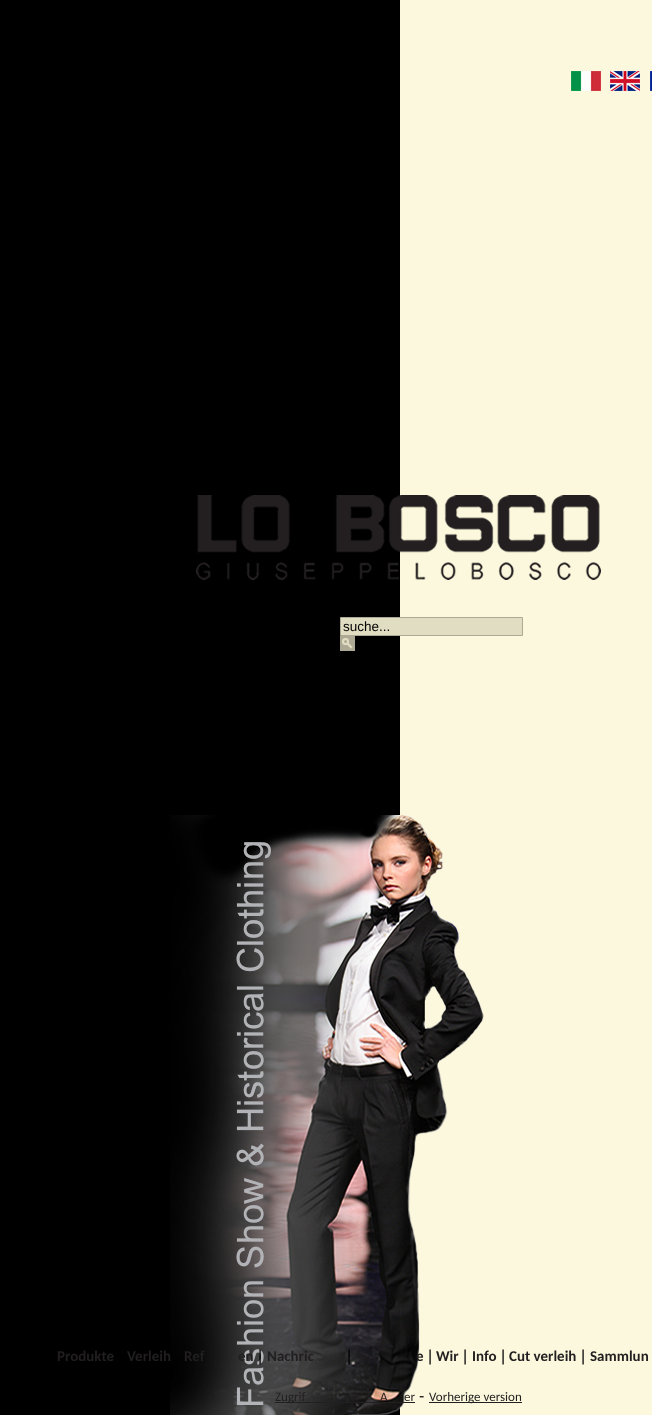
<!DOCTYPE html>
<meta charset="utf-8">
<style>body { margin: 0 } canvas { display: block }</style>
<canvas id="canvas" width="652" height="1415"></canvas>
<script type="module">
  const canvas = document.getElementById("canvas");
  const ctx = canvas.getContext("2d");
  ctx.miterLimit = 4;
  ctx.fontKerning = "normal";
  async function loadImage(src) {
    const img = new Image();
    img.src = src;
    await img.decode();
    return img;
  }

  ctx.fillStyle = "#000000";
  ctx.fillRect(0, 0, 652, 1415);
  ctx.fillStyle = "#fcf8dd";
  ctx.fillRect(400, 0, 252, 1415);
  ctx.drawImage(await loadImage("img1.png"), 571, 71, 30, 20);
  ctx.drawImage(await loadImage("img2.png"), 610, 71, 30, 20);
  ctx.drawImage(await loadImage("img3.png"), 650, 71, 2, 20);
  ctx.drawImage(await loadImage("img4.png"), 196, 495, 405, 85);
  ctx.fillStyle = "#e1ddc2";
  ctx.beginPath();
  ctx.rect(340.5, 617.5, 182, 18);
  ctx.fill();
  ctx.strokeStyle = "#aca994";
  ctx.stroke();
  ctx.font = "13.5px Liberation Sans";
  ctx.fillStyle = "#000000";
  ctx.fillText("suche...", 343, 631);
  ctx.drawImage(await loadImage("img5.png"), 340, 636, 15, 15);
  ctx.font = "bold 15px Carlito";
  ctx.fillStyle = "#211f1f";
  ctx.fillText("Produkte", 57, 1361);
  ctx.drawImage(await loadImage("img6.png"), 170, 815, 314, 600);
  ctx.fillText("Verleih", 127, 1361);
  ctx.fillText("Ref", 184, 1361);
  ctx.fillText("en", 238, 1361);
  ctx.font = "16px Liberation Sans";
  ctx.fillStyle = "#000000";
  ctx.fillText("|", 258, 1361);
  ctx.font = "bold 15px Carlito";
  ctx.fillStyle = "#211f1f";
  ctx.fillText("Nachric", 267, 1361);
  ctx.font = "16px Liberation Sans";
  ctx.fillStyle = "#000000";
  ctx.fillText("|", 347, 1361);
  ctx.font = "bold 15px Carlito";
  ctx.fillStyle = "#211f1f";
  ctx.fillText("e", 416, 1361);
  ctx.font = "16px Liberation Sans";
  ctx.fillStyle = "#000000";
  ctx.fillText("|", 428, 1361);
  ctx.font = "bold 15px Carlito";
  ctx.fillStyle = "#211f1f";
  ctx.fillText("Wir", 436, 1361);
  ctx.font = "16px Liberation Sans";
  ctx.fillStyle = "#000000";
  ctx.fillText("|", 463, 1361);
  ctx.font = "bold 15px Carlito";
  ctx.fillStyle = "#211f1f";
  ctx.fillText("Info", 472, 1361);
  ctx.font = "16px Liberation Sans";
  ctx.fillStyle = "#000000";
  ctx.fillText("|", 501, 1361);
  ctx.font = "bold 15px Carlito";
  ctx.fillStyle = "#211f1f";
  ctx.fillText("Cut verleih", 509, 1361);
  ctx.font = "16px Liberation Sans";
  ctx.fillStyle = "#000000";
  ctx.fillText("|", 581, 1361);
  ctx.font = "bold 15px Carlito";
  ctx.fillStyle = "#211f1f";
  ctx.fillText("Sammlun", 590, 1361);
  ctx.fillRect(275, 1402, 140, 1);
  ctx.font = "13px Carlito";
  ctx.fillText("Zugrif", 275, 1401);
  ctx.fillText("A", 380, 1401);
  ctx.fillText("er", 404, 1401);
  ctx.font = "16px Liberation Sans";
  ctx.fillStyle = "#000000";
  ctx.fillText("-", 419, 1401);
  ctx.fillStyle = "#211f1f";
  ctx.fillRect(429, 1402, 93, 1);
  ctx.font = "13px Carlito";
  ctx.fillText("Vorherige version", 429, 1401);
</script>
